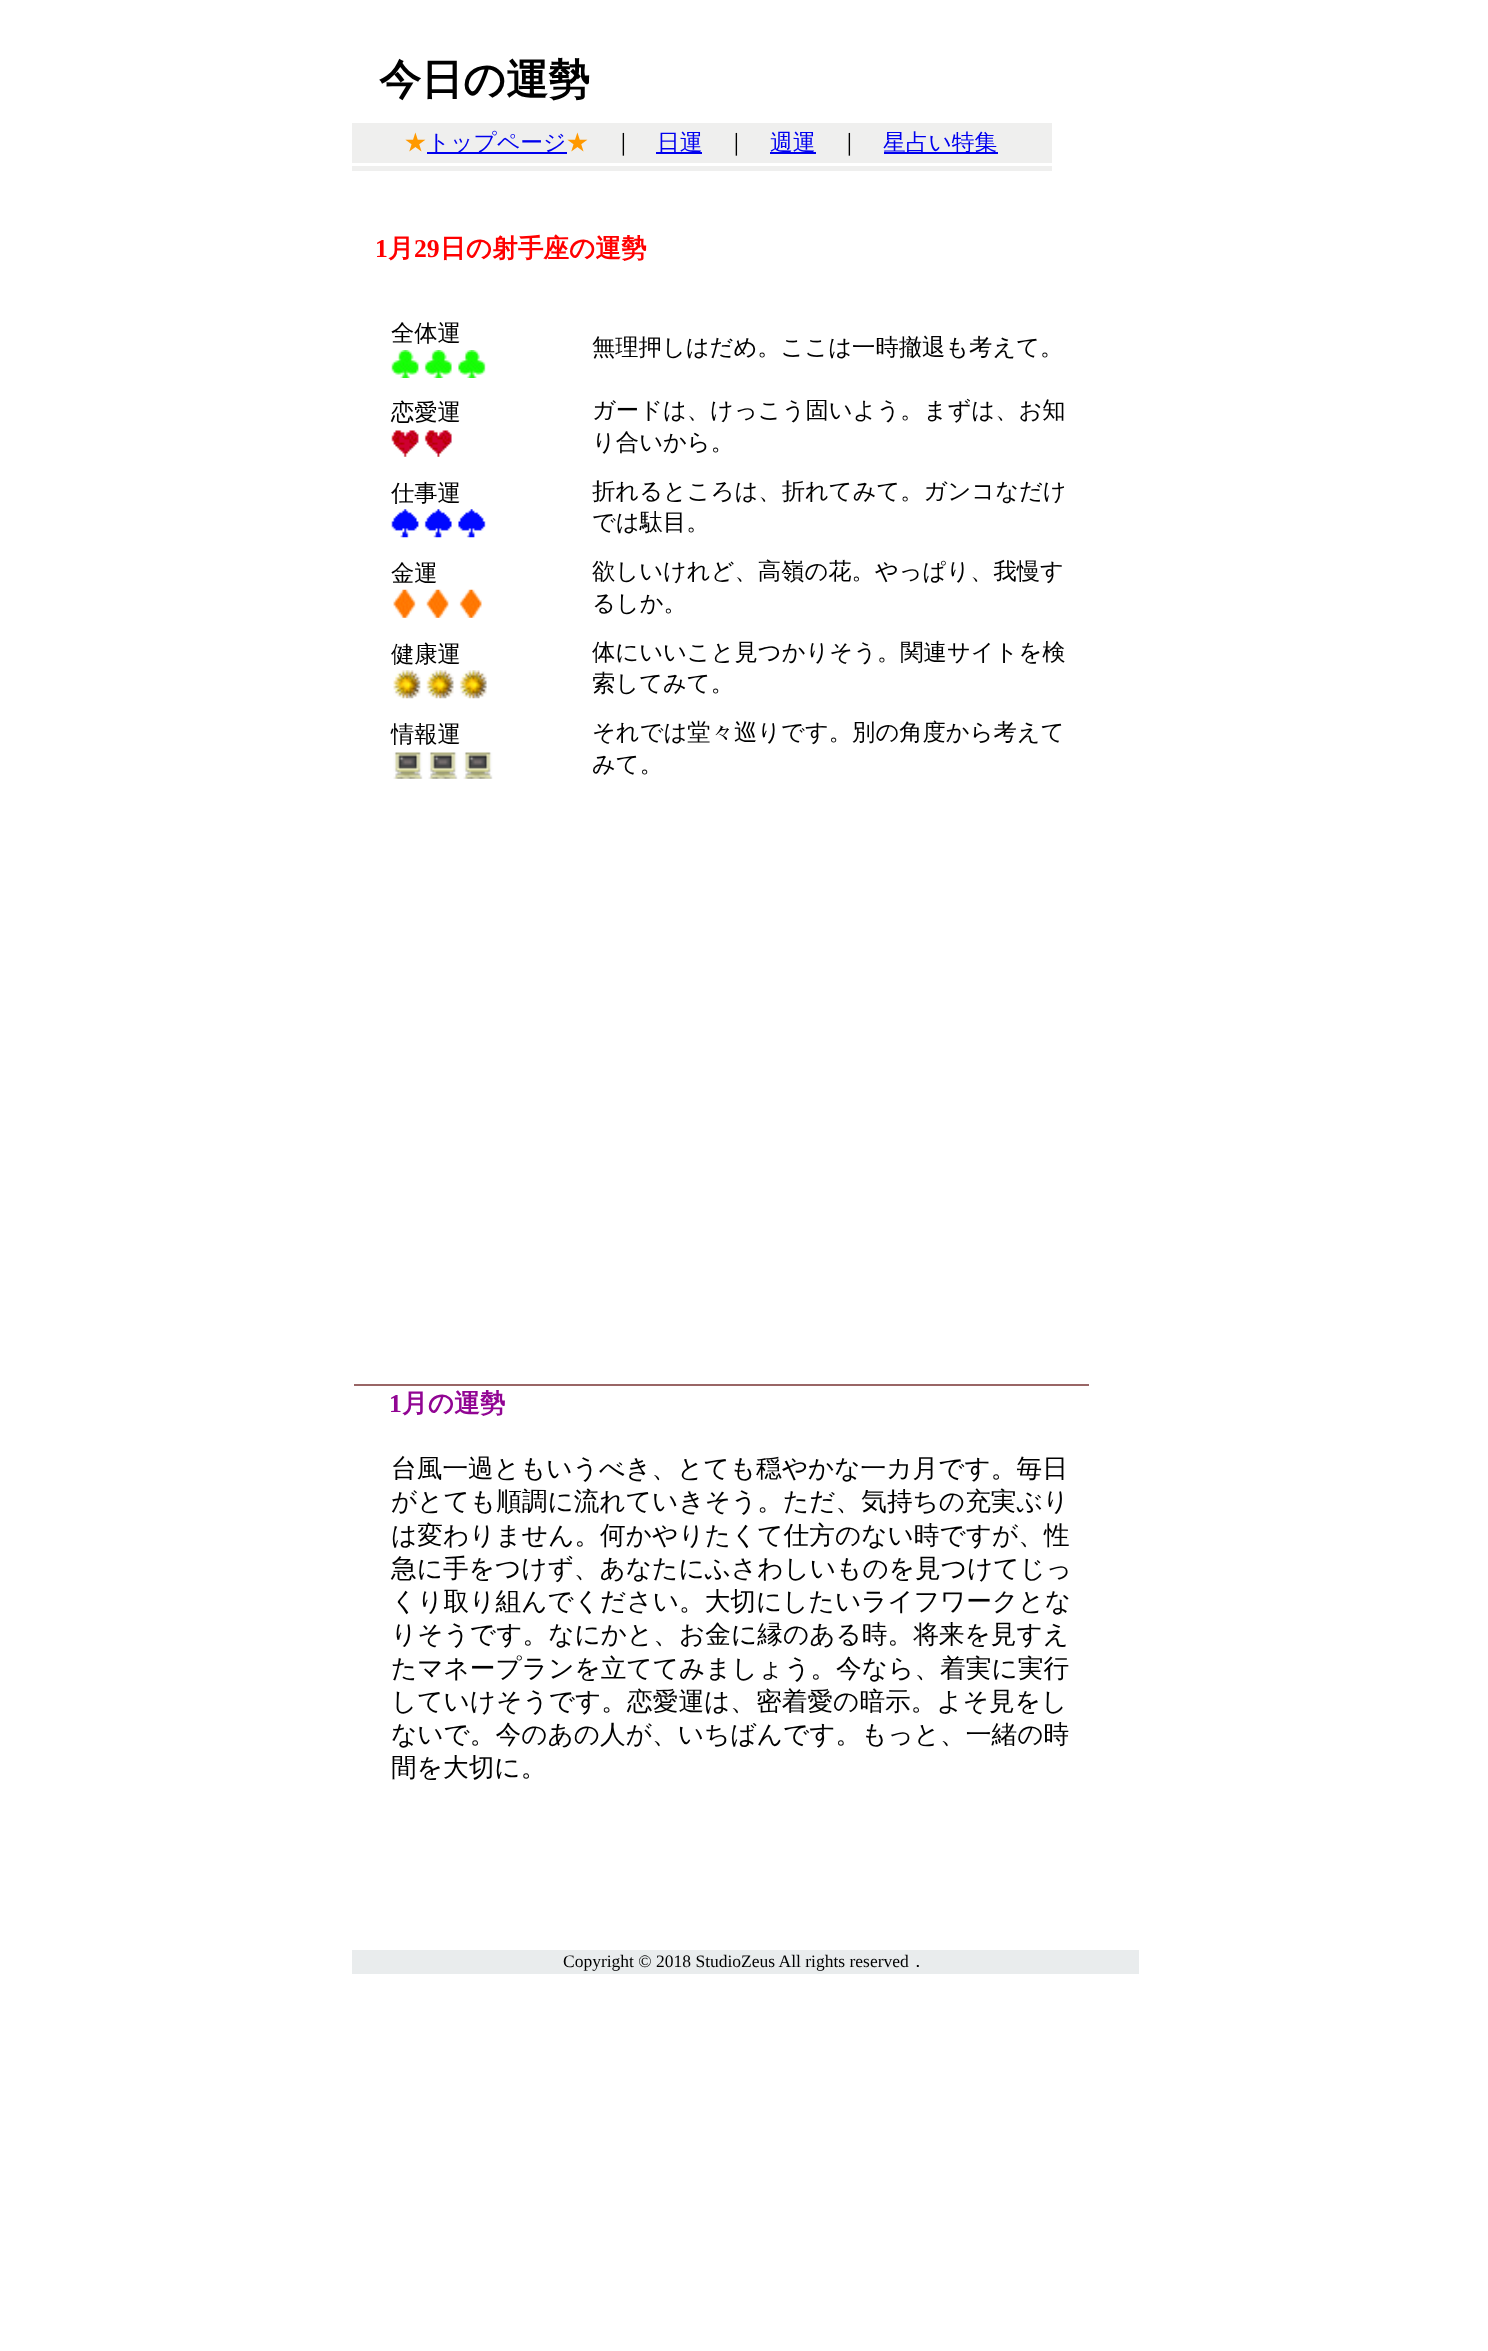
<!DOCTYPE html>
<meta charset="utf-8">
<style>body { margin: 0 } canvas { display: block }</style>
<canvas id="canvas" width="1488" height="2351"></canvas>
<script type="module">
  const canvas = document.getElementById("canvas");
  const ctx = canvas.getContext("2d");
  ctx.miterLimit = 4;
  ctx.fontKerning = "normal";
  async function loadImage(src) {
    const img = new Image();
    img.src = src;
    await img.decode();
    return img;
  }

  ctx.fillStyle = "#ffffff";
  ctx.fillRect(0, 0, 1488, 2351);
  ctx.font = "bold 42px WenQuanYi Zen Hei";
  ctx.fillStyle = "#000000";
  ctx.fillText("今日の運勢", 379, 94);
  ctx.fillStyle = "#efefee";
  ctx.fillRect(352, 123, 700, 40);
  ctx.font = "500 22.75px WenQuanYi Zen Hei";
  ctx.fillStyle = "#ff9900";
  ctx.fillText("★", 404, 150);
  ctx.fillStyle = "#0000ee";
  ctx.fillRect(427, 152, 140, 2);
  ctx.fillText("トップページ", 427, 150);
  ctx.fillStyle = "#ff9900";
  ctx.fillText("★", 566, 150);
  ctx.fillStyle = "#000000";
  ctx.fillText("｜", 612, 150);
  ctx.fillStyle = "#0000ee";
  ctx.fillRect(656, 152, 46, 2);
  ctx.fillText("日運", 657, 150);
  ctx.fillStyle = "#000000";
  ctx.fillText("｜", 725, 150);
  ctx.fillStyle = "#0000ee";
  ctx.fillText("週運", 770, 150);
  ctx.fillRect(770, 152, 46, 2);
  ctx.fillStyle = "#000000";
  ctx.fillText("｜", 838, 150);
  ctx.fillStyle = "#0000ee";
  ctx.fillRect(884, 152, 114, 2);
  ctx.fillText("星占い特集", 883, 150);
  ctx.fillStyle = "#efefee";
  ctx.fillRect(352, 166, 700, 5);
  ctx.font = "bold 25.7px Liberation Serif";
  ctx.fillStyle = "#ff0000";
  ctx.fillText("1", 375, 257);
  ctx.font = "bold 25.7px WenQuanYi Zen Hei";
  ctx.fillText("月", 388, 257);
  ctx.font = "bold 25.7px Liberation Serif";
  ctx.fillText("29", 414, 257);
  ctx.font = "bold 25.7px WenQuanYi Zen Hei";
  ctx.fillText("日の射手座の運勢", 440, 257);
  ctx.font = "500 23.3px WenQuanYi Zen Hei";
  ctx.fillStyle = "#000000";
  ctx.fillText("全体運", 391, 341);
  ctx.drawImage(await loadImage("img1.png"), 391, 350, 95, 28);
  ctx.fillText("無理押しはだめ。ここは一時撤退も考えて。", 592, 355);
  ctx.fillText("恋愛運", 391, 420);
  ctx.drawImage(await loadImage("img2.png"), 391, 430, 61, 27);
  ctx.fillText("ガードは、けっこう固いよう。まずは、お知", 592, 418);
  ctx.fillText("り合いから。", 592, 450);
  ctx.fillText("仕事運", 391, 501);
  ctx.drawImage(await loadImage("img3.png"), 391, 509, 95, 29);
  ctx.fillText("折れるところは、折れてみて。ガンコなだけ", 592, 499);
  ctx.fillText("では駄目。", 592, 530);
  ctx.fillText("金運", 391, 581);
  ctx.drawImage(await loadImage("img4.png"), 393, 589, 89, 29);
  ctx.fillText("欲しいけれど、高嶺の花。やっぱり、我慢す", 592, 579);
  ctx.fillText("るしか。", 592, 611);
  ctx.fillText("健康運", 391, 662);
  ctx.drawImage(await loadImage("img5.png"), 393, 670, 94, 29);
  ctx.fillText("体にいいこと見つかりそう。関連サイトを検", 592, 660);
  ctx.fillText("索してみて。", 592, 691);
  ctx.fillText("情報運", 391, 742);
  ctx.drawImage(await loadImage("img6.png"), 393, 752, 100, 27);
  ctx.fillText("それでは堂々巡りです。別の角度から考えて", 592, 740);
  ctx.fillText("みて。", 592, 772);
  ctx.fillStyle = "#996666";
  ctx.fillRect(354, 1384, 735, 2);
  ctx.font = "bold 25.7px Liberation Serif";
  ctx.fillStyle = "#910593";
  ctx.fillText("1", 389, 1412);
  ctx.font = "bold 25.7px WenQuanYi Zen Hei";
  ctx.fillText("月の運勢", 402, 1412);
  ctx.font = "500 25.7px WenQuanYi Zen Hei";
  ctx.fillStyle = "#000000";
  ctx.fillText("台風一過ともいうべき、とても穏やかな一カ月です。毎日", 391, 1477);
  ctx.fillText("がとても順調に流れていきそう。ただ、気持ちの充実ぶり", 391, 1510);
  ctx.fillText("は変わりません。何かやりたくて仕方のない時ですが、性", 391, 1544);
  ctx.fillText("急に手をつけず、あなたにふさわしいものを見つけてじっ", 391, 1577);
  ctx.fillText("くり取り組んでください。大切にしたいライフワークとな", 391, 1610);
  ctx.fillText("りそうです。なにかと、お金に縁のある時。将来を見すえ", 391, 1643);
  ctx.fillText("たマネープランを立ててみましょう。今なら、着実に実行", 391, 1677);
  ctx.fillText("していけそうです。恋愛運は、密着愛の暗示。よそ見をし", 391, 1710);
  ctx.fillText("ないで。今のあの人が、いちばんです。もっと、一緒の時", 391, 1743);
  ctx.fillText("間を大切に。", 391, 1776);
  ctx.fillStyle = "#e9eced";
  ctx.fillRect(352, 1950, 787, 24);
  ctx.font = "17.5px Liberation Serif";
  ctx.fillStyle = "#000000";
  ctx.fillText("Copyright © 2018 StudioZeus All rights reserved", 563, 1967);
  ctx.font = "500 17.5px WenQuanYi Zen Hei";
  ctx.fillText("．", 909, 1967);
</script>
